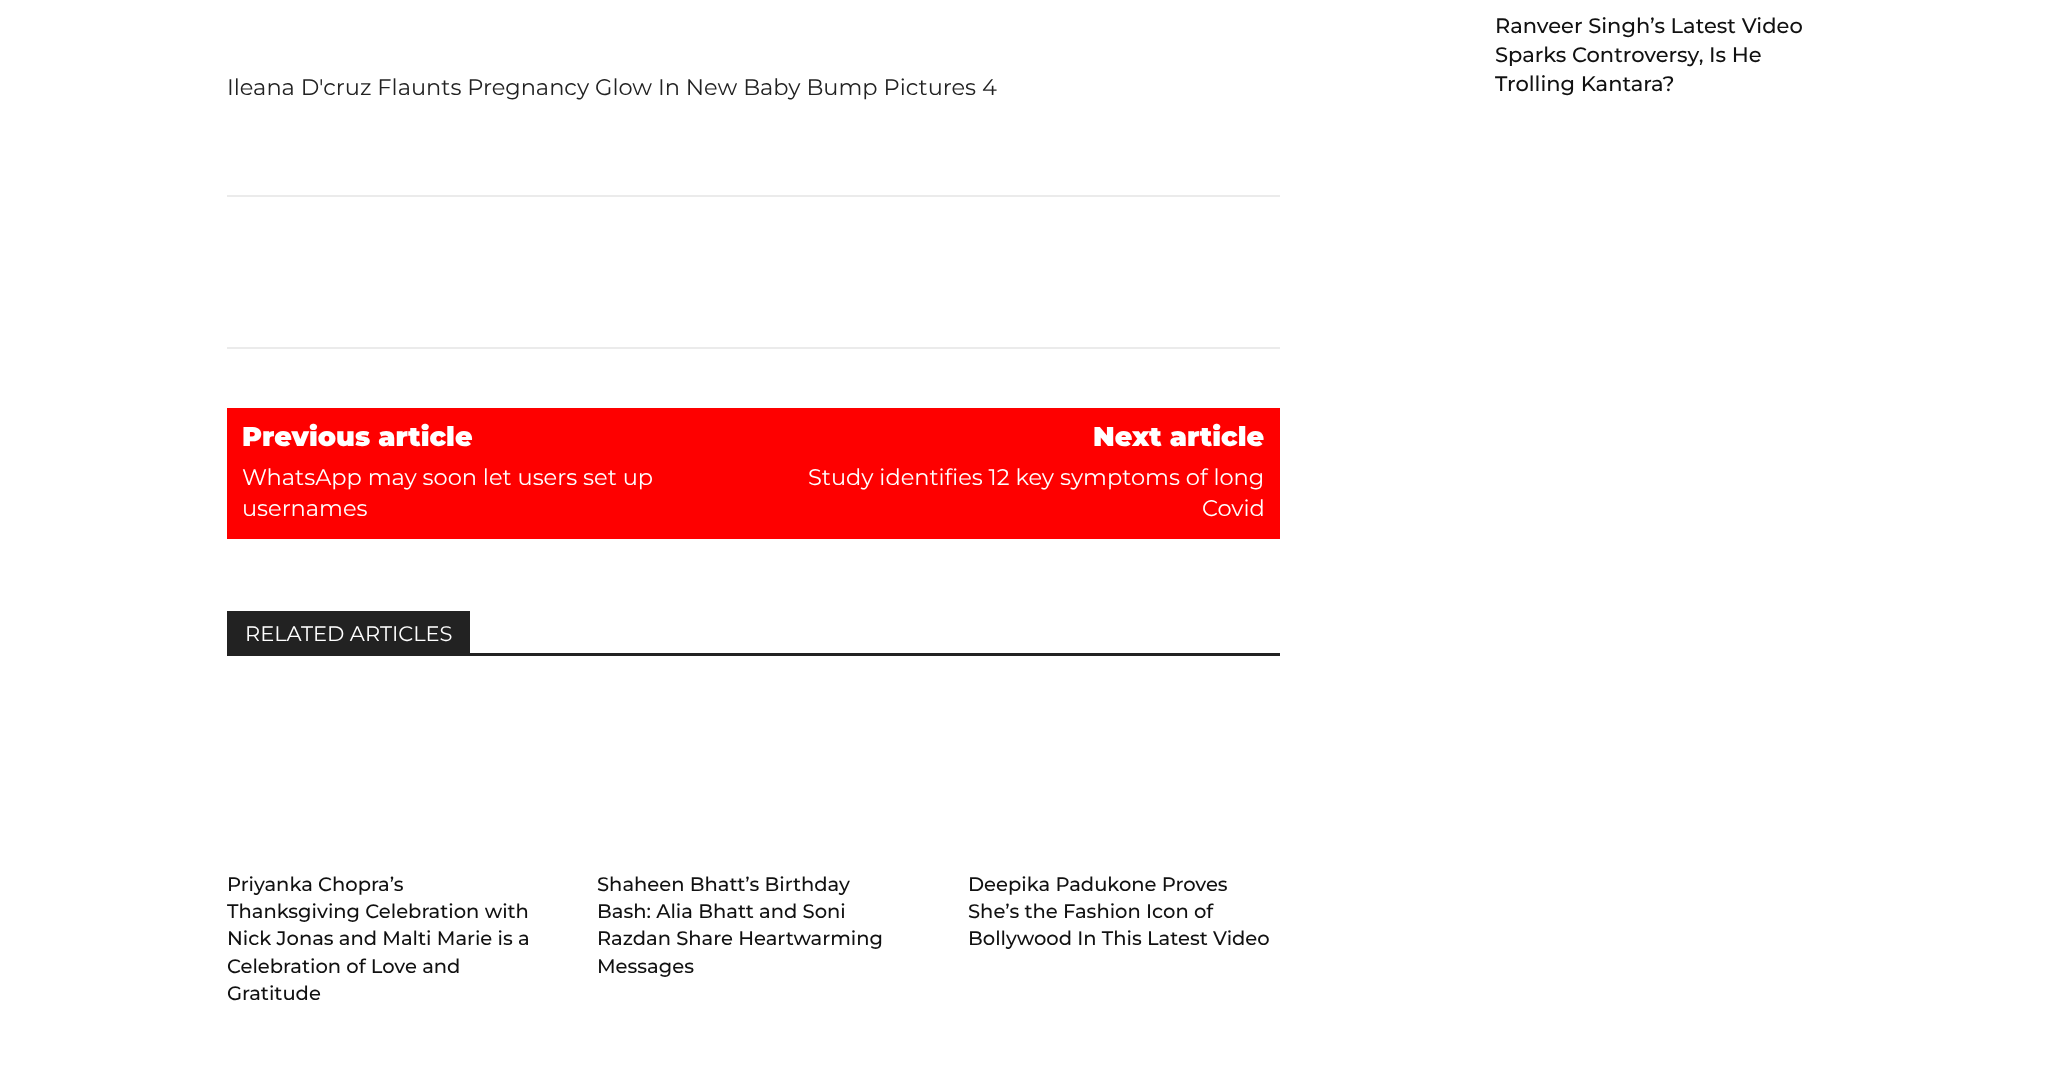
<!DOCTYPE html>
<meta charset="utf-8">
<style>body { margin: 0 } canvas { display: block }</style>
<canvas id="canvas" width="2054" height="1080"></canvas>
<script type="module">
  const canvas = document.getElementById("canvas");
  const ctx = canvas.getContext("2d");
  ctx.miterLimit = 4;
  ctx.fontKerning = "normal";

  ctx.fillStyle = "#ffffff";
  ctx.fillRect(0, 0, 2054, 1080);
  ctx.font = "500 21px Montserrat";
  ctx.fillStyle = "#111111";
  ctx.fillText("Ranveer Singh’s Latest Video", 1495, 33);
  ctx.fillText("Sparks Controversy, Is He", 1495, 62);
  ctx.fillText("Trolling Kantara?", 1495, 91);
  ctx.font = "22.5px Montserrat";
  ctx.fillStyle = "#222222";
  ctx.fillText("Ileana D'cruz Flaunts Pregnancy Glow In New Baby Bump Pictures 4", 227, 95);
  ctx.fillStyle = "#ebebeb";
  ctx.fillRect(227, 195, 1053, 2);
  ctx.fillRect(227, 347, 1053, 2);
  ctx.fillStyle = "#fe0000";
  ctx.fillRect(227, 408, 1053, 131);
  ctx.font = "900 27px Montserrat";
  ctx.fillStyle = "#ffffff";
  ctx.fillText("Previous article", 242, 446);
  ctx.font = "22.5px Montserrat";
  ctx.fillText("WhatsApp may soon let users set up", 242, 485);
  ctx.fillText("usernames", 242, 516);
  ctx.font = "900 27px Montserrat";
  ctx.fillText("Next article", 1093, 446);
  ctx.font = "22.5px Montserrat";
  ctx.fillText("Study identifies 12 key symptoms of long", 808, 485);
  ctx.fillText("Covid", 1202, 516);
  ctx.fillStyle = "#222222";
  ctx.fillRect(227, 653, 1053, 3);
  ctx.fillRect(227, 611, 243, 42);
  ctx.font = "21px Montserrat";
  ctx.fillStyle = "#ffffff";
  ctx.fillText("RELATED ARTICLES", 245, 641);
  ctx.font = "500 19.5px Montserrat";
  ctx.fillStyle = "#111111";
  ctx.fillText("Priyanka Chopra’s", 227, 891);
  ctx.fillText("Thanksgiving Celebration with", 227, 918);
  ctx.fillText("Nick Jonas and Malti Marie is a", 227, 945);
  ctx.fillText("Celebration of Love and", 227, 973);
  ctx.fillText("Gratitude", 227, 1000);
  ctx.fillText("Shaheen Bhatt’s Birthday", 597, 891);
  ctx.fillText("Bash: Alia Bhatt and Soni", 597, 918);
  ctx.fillText("Razdan Share Heartwarming", 597, 945);
  ctx.fillText("Messages", 597, 973);
  ctx.fillText("Deepika Padukone Proves", 968, 891);
  ctx.fillText("She’s the Fashion Icon of", 968, 918);
  ctx.fillText("Bollywood In This Latest Video", 968, 945);
</script>
